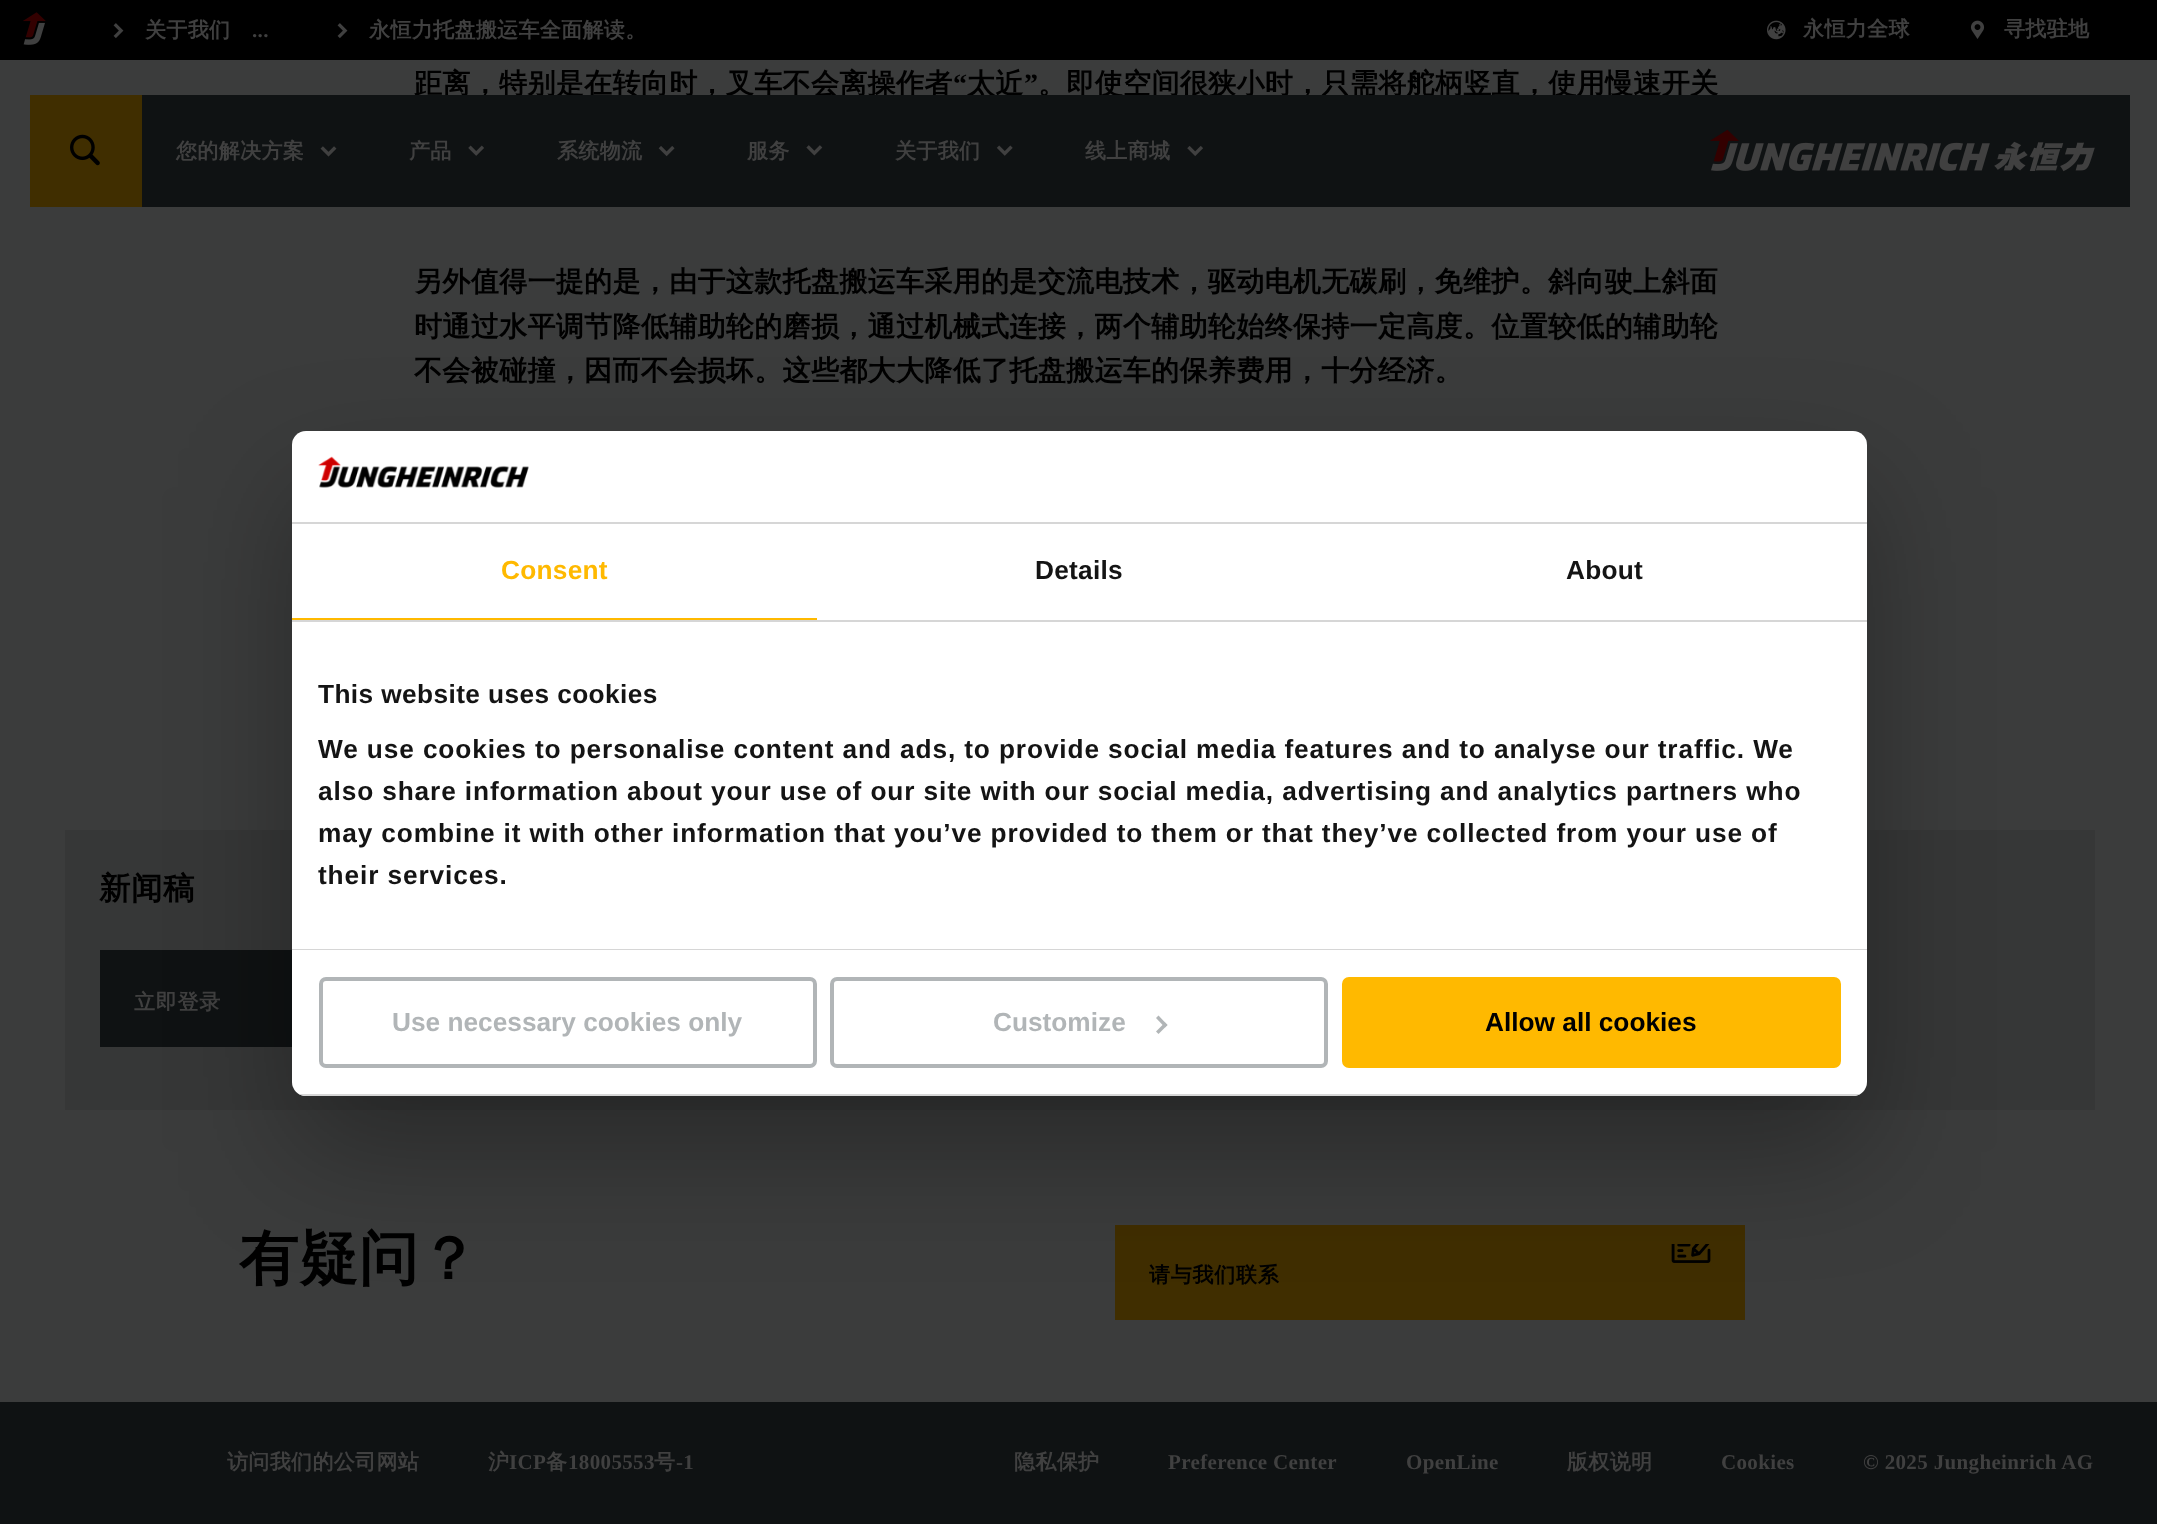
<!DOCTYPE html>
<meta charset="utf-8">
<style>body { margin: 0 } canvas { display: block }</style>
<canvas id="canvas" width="2157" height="1524"></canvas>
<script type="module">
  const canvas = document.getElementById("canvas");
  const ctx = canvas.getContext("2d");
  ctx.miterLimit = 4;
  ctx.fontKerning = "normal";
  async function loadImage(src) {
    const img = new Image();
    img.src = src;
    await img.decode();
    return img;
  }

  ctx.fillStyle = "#3b3c3c";
  ctx.fillRect(0, 0, 2157, 1524);
  ctx.fillStyle = "#000000";
  ctx.fillRect(0, 0, 2157, 60);
  ctx.drawImage(await loadImage("img1.png"), 23, 12, 23, 33);
  ctx.drawImage(await loadImage("img2.png"), 113, 23, 11, 16);
  ctx.letterSpacing = "0.35px";
  ctx.font = "bold 21px WenQuanYi Zen Hei";
  ctx.fillStyle = "#404040";
  ctx.fillText("关于我们", 145, 37);
  ctx.font = "bold 21px Liberation Serif";
  ctx.fillText("...", 252, 37);
  ctx.drawImage(await loadImage("img2.png"), 337, 23, 11, 16);
  ctx.font = "bold 21px WenQuanYi Zen Hei";
  ctx.fillText("永恒力托盘搬运车全面解读。", 369, 37);
  ctx.drawImage(await loadImage("img3.png"), 1767, 20, 19, 20);
  ctx.fillText("永恒力全球", 1803, 36);
  ctx.drawImage(await loadImage("img4.png"), 1970, 20, 15, 19);
  ctx.fillText("寻找驻地", 2004, 36);
  ctx.font = "bold 28px WenQuanYi Zen Hei";
  ctx.fillStyle = "#000000";
  ctx.fillText("距离，特别是在转向时，叉车不会离操作者", 414, 93);
  ctx.fillText("太近", 967, 93);
  ctx.fillText("。即使空间很狭小时，只需将舵柄竖直，使用慢速开关", 1038, 93);
  ctx.fillStyle = "#0f1213";
  ctx.fillRect(142, 95, 1988, 112);
  ctx.fillStyle = "#402e00";
  ctx.fillRect(30, 95, 112, 112);
  ctx.drawImage(await loadImage("img5.png"), 70, 134, 30, 32);
  ctx.font = "bold 21px WenQuanYi Zen Hei";
  ctx.fillStyle = "#404040";
  ctx.fillText("您的解决方案", 176, 158);
  ctx.drawImage(await loadImage("img6.png"), 320, 146, 17, 11);
  ctx.fillText("产品", 409, 158);
  ctx.drawImage(await loadImage("img7.png"), 468, 145, 16, 11);
  ctx.fillText("系统物流", 557, 158);
  ctx.drawImage(await loadImage("img8.png"), 658, 146, 17, 11);
  ctx.fillText("服务", 747, 158);
  ctx.drawImage(await loadImage("img9.png"), 806, 145, 17, 11);
  ctx.fillText("关于我们", 895, 158);
  ctx.drawImage(await loadImage("img10.png"), 996, 145, 17, 11);
  ctx.fillText("线上商城", 1085, 158);
  ctx.drawImage(await loadImage("img11.png"), 1187, 145, 16, 12);
  ctx.drawImage(await loadImage("img12.png"), 1710, 129, 385, 43);
  ctx.font = "bold 28px Liberation Serif";
  ctx.fillStyle = "#000000";
  ctx.fillText("“", 953, 93);
  ctx.fillText("”", 1024, 93);
  ctx.font = "bold 28px WenQuanYi Zen Hei";
  ctx.fillText("另外值得一提的是，由于这款托盘搬运车采用的是交流电技术，驱动电机无碳刷，免维护。斜向驶上斜面", 414, 291);
  ctx.fillText("时通过水平调节降低辅助轮的磨损，通过机械式连接，两个辅助轮始终保持一定高度。位置较低的辅助轮", 414, 336);
  ctx.fillText("不会被碰撞，因而不会损坏。这些都大大降低了托盘搬运车的保养费用，十分经济。", 414, 380);
  ctx.fillStyle = "#363737";
  ctx.fillRect(65, 830, 2030, 280);
  ctx.letterSpacing = "0.5px";
  ctx.font = "bold 31.5px WenQuanYi Zen Hei";
  ctx.fillStyle = "#000000";
  ctx.fillText("新闻稿", 99, 899);
  ctx.fillStyle = "#0f1213";
  ctx.fillRect(100, 950, 192, 97);
  ctx.letterSpacing = "0.75px";
  ctx.font = "bold 21px WenQuanYi Zen Hei";
  ctx.fillStyle = "#404040";
  ctx.fillText("立即登录", 134, 1009);
  ctx.letterSpacing = "0.35px";
  ctx.font = "bold 59.5px WenQuanYi Zen Hei";
  ctx.fillStyle = "#000000";
  ctx.fillText("有疑问？", 239, 1279);
  ctx.fillStyle = "#402e00";
  ctx.fillRect(1115, 1225, 630, 95);
  ctx.drawImage(await loadImage("img13.png"), 1671, 1244, 40, 19);
  ctx.letterSpacing = "0.75px";
  ctx.font = "bold 21px WenQuanYi Zen Hei";
  ctx.fillStyle = "#000000";
  ctx.fillText("请与我们联系", 1149, 1282);
  ctx.fillStyle = "rgba(0, 0, 0, 0.3)";
  ctx.filter = "blur(59.5px)";
  ctx.beginPath();
  ctx.roundRect(292, 487, 1575, 665, 14);
  ctx.fill();
  ctx.filter = "none";
  ctx.fillStyle = "#ffffff";
  ctx.beginPath();
  ctx.roundRect(292, 431, 1575, 665, 14);
  ctx.fill();
  ctx.fillStyle = "#d6d6d6";
  ctx.fillRect(292, 522, 1575, 2);
  ctx.drawImage(await loadImage("img14.png"), 318, 456, 211, 32);
  ctx.fillRect(292, 620, 1575, 2);
  ctx.fillStyle = "#ffb900";
  ctx.fillRect(292, 618, 525, 2);
  ctx.letterSpacing = "0.25px";
  ctx.font = "bold 26.25px Liberation Sans";
  ctx.fillText("Consent", 501, 579);
  ctx.fillStyle = "#141414";
  ctx.fillText("Details", 1035, 579);
  ctx.fillText("About", 1566, 579);
  ctx.fillStyle = "#d6d6d6";
  ctx.fillRect(292, 949, 1575, 1);
  ctx.letterSpacing = "0.4px";
  ctx.fillStyle = "#141414";
  ctx.fillText("This website uses cookies", 318, 703);
  ctx.letterSpacing = "0.88px";
  ctx.fillText("We use cookies to personalise content and ads, to provide social media features and to analyse our traffic. We", 318, 758);
  ctx.fillText("also share information about your use of our site with our social media, advertising and analytics partners who", 318, 800);
  ctx.fillText("may combine it with other information that you’ve provided to them or that they’ve collected from your use of", 318, 842);
  ctx.fillText("their services.", 318, 884);
  ctx.save();
  ctx.beginPath();
  ctx.roundRect(292, 431, 1575, 665, 14);
  ctx.clip();
  ctx.fillStyle = "#d6d6d6";
  ctx.fillRect(292, 1094, 1575, 2);
  ctx.restore();
  ctx.beginPath();
  ctx.roundRect(321, 979, 494, 87, 5);
  ctx.strokeStyle = "#b1b5b7";
  ctx.lineWidth = 4;
  ctx.stroke();
  ctx.letterSpacing = "0px";
  ctx.fillStyle = "#b1b5b7";
  ctx.fillText("Use necessary cookies only", 392, 1031);
  ctx.beginPath();
  ctx.roundRect(832, 979, 494, 87, 5);
  ctx.stroke();
  ctx.fillText("Customize", 993, 1031);
  ctx.beginPath();
  ctx.moveTo(1158.5, 1015.5);
  ctx.lineTo(1167.5, 1025);
  ctx.lineTo(1165, 1027.5);
  ctx.lineTo(1156, 1018);
  ctx.closePath();
  ctx.fill();
  ctx.beginPath();
  ctx.moveTo(1165, 1022.5);
  ctx.lineTo(1167.5, 1025);
  ctx.lineTo(1158.5, 1034);
  ctx.lineTo(1156, 1031.5);
  ctx.closePath();
  ctx.fill();
  ctx.fillStyle = "#ffb900";
  ctx.beginPath();
  ctx.roundRect(1344, 979, 495, 87, 5);
  ctx.fill();
  ctx.strokeStyle = "#ffb900";
  ctx.stroke();
  ctx.fillStyle = "#000000";
  ctx.fillText("Allow all cookies", 1485, 1031);
  ctx.fillStyle = "#0f1213";
  ctx.fillRect(0, 1402, 2157, 122);
  ctx.letterSpacing = "0.35px";
  ctx.font = "bold 21px WenQuanYi Zen Hei";
  ctx.fillStyle = "#404040";
  ctx.fillText("访问我们的公司网站", 227, 1469);
  ctx.fillText("沪", 488, 1469);
  ctx.font = "bold 21px Liberation Serif";
  ctx.fillText("ICP", 509, 1469);
  ctx.font = "bold 21px WenQuanYi Zen Hei";
  ctx.fillText("备", 546, 1469);
  ctx.font = "bold 21px Liberation Serif";
  ctx.fillText("18005553", 568, 1469);
  ctx.font = "bold 21px WenQuanYi Zen Hei";
  ctx.fillText("号", 654, 1469);
  ctx.font = "bold 21px Liberation Serif";
  ctx.fillText("-1", 676, 1469);
  ctx.font = "bold 21px WenQuanYi Zen Hei";
  ctx.fillText("隐私保护", 1014, 1469);
  ctx.font = "bold 21px Liberation Serif";
  ctx.fillText("Preference Center", 1168, 1469);
  ctx.fillText("OpenLine", 1406, 1469);
  ctx.font = "bold 21px WenQuanYi Zen Hei";
  ctx.fillText("版权说明", 1567, 1469);
  ctx.font = "bold 21px Liberation Serif";
  ctx.fillText("Cookies", 1721, 1469);
  ctx.fillText("© 2025 Jungheinrich AG", 1863, 1469);
</script>
